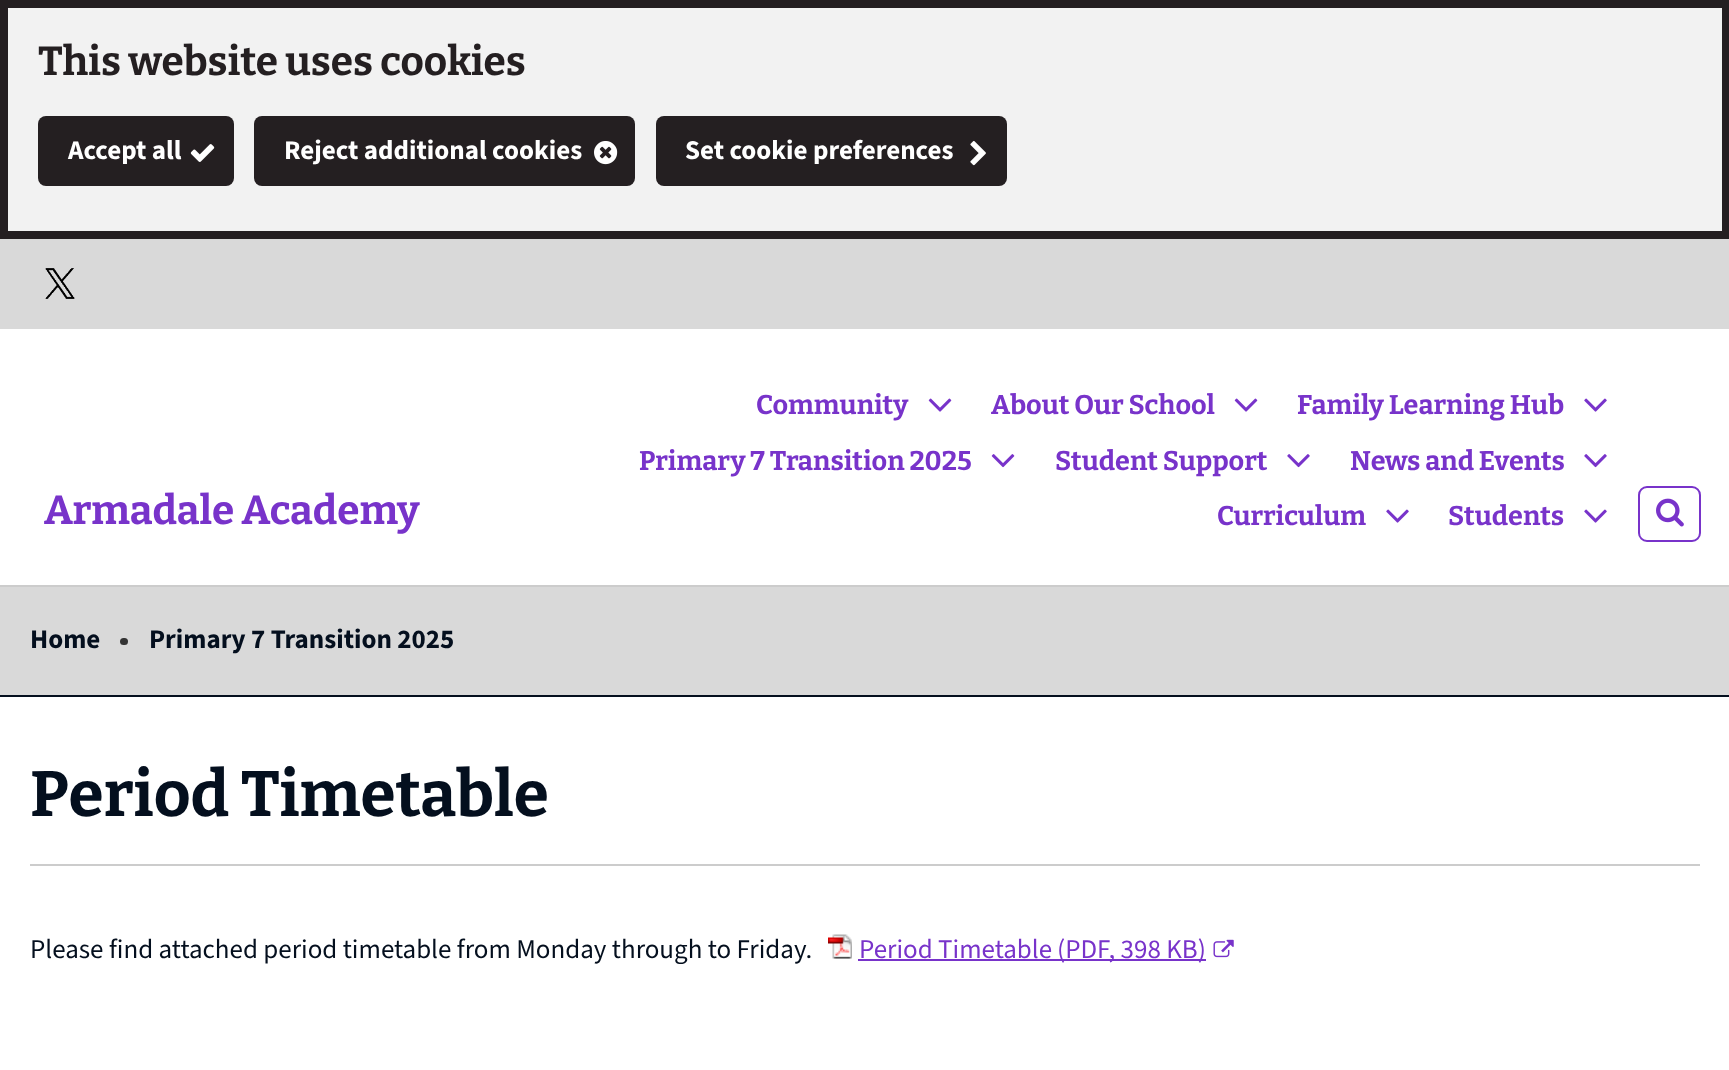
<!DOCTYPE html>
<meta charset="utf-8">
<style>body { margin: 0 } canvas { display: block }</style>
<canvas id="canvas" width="1729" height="1070"></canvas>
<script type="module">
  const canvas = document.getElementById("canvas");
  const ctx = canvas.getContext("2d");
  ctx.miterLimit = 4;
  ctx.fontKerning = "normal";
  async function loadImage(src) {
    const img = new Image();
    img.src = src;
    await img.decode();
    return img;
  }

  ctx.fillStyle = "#ffffff";
  ctx.fillRect(0, 0, 1729, 1070);
  ctx.fillStyle = "#f2f2f2";
  ctx.beginPath();
  ctx.rect(4, 4, 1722, 231);
  ctx.fill();
  ctx.strokeStyle = "#241f21";
  ctx.lineWidth = 8;
  ctx.stroke();
  ctx.font = "bold 40.5px Bitter";
  ctx.fillStyle = "#241f21";
  ctx.fillText("This website uses cookies", 38, 75);
  ctx.beginPath();
  ctx.roundRect(38, 116, 196, 70, 8);
  ctx.fill();
  ctx.font = "bold 27px 'Source Sans 3'";
  ctx.fillStyle = "#ffffff";
  ctx.fillText("Accept all", 68, 159);
  ctx.drawImage(await loadImage("img1.png"), 190, 144, 25, 18);
  ctx.fillStyle = "#241f21";
  ctx.beginPath();
  ctx.roundRect(254, 116, 381, 70, 8);
  ctx.fill();
  ctx.fillStyle = "#ffffff";
  ctx.fillText("Reject additional cookies", 284, 159);
  ctx.drawImage(await loadImage("img2.png"), 594, 141, 24, 24);
  ctx.fillStyle = "#241f21";
  ctx.beginPath();
  ctx.roundRect(656, 116, 351, 70, 8);
  ctx.fill();
  ctx.fillStyle = "#ffffff";
  ctx.fillText("Set cookie preferences", 685, 159);
  ctx.drawImage(await loadImage("img3.png"), 970, 140, 16, 26);
  ctx.fillStyle = "#cccccc";
  ctx.fillRect(0, 585, 1729, 2);
  ctx.font = "bold 40.5px Bitter";
  ctx.fillStyle = "#7833ca";
  ctx.fillText("Armadale Academy", 44, 524);
  ctx.fillStyle = "#d9d9d9";
  ctx.fillRect(0, 239, 1729, 90);
  ctx.drawImage(await loadImage("img4.png"), 45, 268, 30, 31);
  ctx.font = "bold 27px Bitter";
  ctx.fillStyle = "#7833ca";
  ctx.fillText("Community", 756, 414);
  ctx.drawImage(await loadImage("img5.png"), 928, 398, 24, 14);
  ctx.fillText("About Our School", 991, 414);
  ctx.drawImage(await loadImage("img5.png"), 1234, 398, 24, 14);
  ctx.fillText("Family Learning Hub", 1297, 414);
  ctx.drawImage(await loadImage("img6.png"), 1584, 398, 23, 14);
  ctx.fillText("Primary 7 Transition 2025", 639, 470);
  ctx.drawImage(await loadImage("img7.png"), 991, 454, 24, 14);
  ctx.fillText("Student Support", 1055, 470);
  ctx.drawImage(await loadImage("img8.png"), 1287, 454, 23, 14);
  ctx.fillText("News and Events", 1350, 470);
  ctx.drawImage(await loadImage("img8.png"), 1584, 454, 23, 14);
  ctx.fillText("Curriculum", 1217, 525);
  ctx.drawImage(await loadImage("img6.png"), 1386, 509, 23, 14);
  ctx.fillText("Students", 1448, 525);
  ctx.drawImage(await loadImage("img6.png"), 1584, 509, 23, 14);
  ctx.beginPath();
  ctx.roundRect(1639, 487, 61, 54, 8);
  ctx.strokeStyle = "#7833ca";
  ctx.lineWidth = 2;
  ctx.stroke();
  ctx.drawImage(await loadImage("img9.png"), 1656, 498, 28, 29);
  ctx.fillStyle = "#d9d9d9";
  ctx.fillRect(0, 587, 1729, 108);
  ctx.fillStyle = "#040f1e";
  ctx.fillRect(0, 695, 1729, 2);
  ctx.font = "bold 27px 'Source Sans 3'";
  ctx.fillText("Home", 30, 648);
  ctx.fillStyle = "#343434";
  ctx.beginPath();
  ctx.roundRect(120, 638, 8, 7, 3.5);
  ctx.fill();
  ctx.fillStyle = "#040f1e";
  ctx.fillText("Primary 7 Transition 2025", 149, 648);
  ctx.fillStyle = "#cccccc";
  ctx.fillRect(30, 864, 1670, 2);
  ctx.font = "bold 64px Bitter";
  ctx.fillStyle = "#040f1e";
  ctx.fillText("Period Timetable", 30, 816);
  ctx.font = "27px 'Source Sans 3'";
  ctx.fillText("Please find attached period timetable from Monday through to Friday.", 30, 958);
  ctx.drawImage(await loadImage("img10.png"), 828, 934, 24, 25);
  ctx.fillStyle = "#7833ca";
  ctx.fillText("Period Timetable", 859, 958);
  ctx.fillRect(858, 959, 348, 2);
  ctx.fillText("(PDF, 398 KB)", 1057, 958);
  ctx.drawImage(await loadImage("img11.png"), 1213, 939, 21, 19);
</script>
